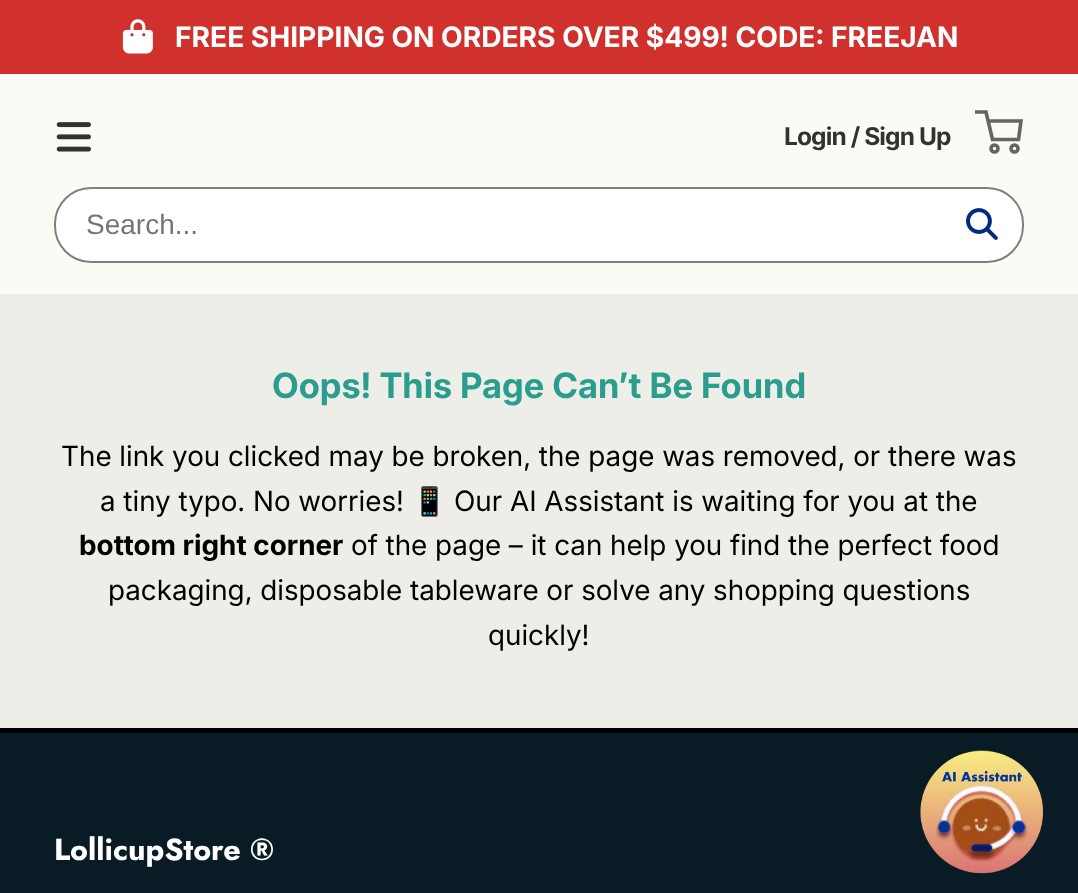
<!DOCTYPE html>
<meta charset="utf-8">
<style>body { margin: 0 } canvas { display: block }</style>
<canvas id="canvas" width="1078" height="893"></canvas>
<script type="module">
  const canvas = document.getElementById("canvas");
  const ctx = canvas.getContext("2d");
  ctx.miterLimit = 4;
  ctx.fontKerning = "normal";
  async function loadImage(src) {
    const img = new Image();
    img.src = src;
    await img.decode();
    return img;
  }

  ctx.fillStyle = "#eeeee9";
  ctx.fillRect(0, 0, 1078, 893);
  ctx.fillStyle = "#d0312d";
  ctx.fillRect(0, 0, 1078, 74);
  ctx.drawImage(await loadImage("img1.png"), 122, 19, 31, 35);
  ctx.font = "bold 28.2px 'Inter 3'";
  ctx.fillStyle = "#ffffff";
  ctx.fillText("FREE SHIPPING ON ORDERS OVER $499! CODE: FREEJAN", 175, 47);
  ctx.fillStyle = "#fcfaf4";
  ctx.fillRect(0, 74, 1078, 220);
  ctx.drawImage(await loadImage("img2.png"), 56, 122, 35, 30);
  ctx.letterSpacing = "-0.9px";
  ctx.font = "bold 24.5px 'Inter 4'";
  ctx.fillStyle = "#323231";
  ctx.fillText("Login / Sign Up", 784, 145);
  ctx.beginPath();
  ctx.moveTo(988, 121);
  ctx.lineTo(1021, 121);
  ctx.lineTo(1018.5, 139.5);
  ctx.lineTo(992.5, 139.5);
  ctx.lineTo(986, 112);
  ctx.lineTo(975, 112);
  ctx.strokeStyle = "#646464";
  ctx.lineWidth = 3.6;
  ctx.stroke();
  ctx.beginPath();
  ctx.arc(994.5, 148.5, 3.5, 0, Math.PI * 2);
  ctx.stroke();
  ctx.beginPath();
  ctx.arc(1014.5, 148.5, 3.5, 0, Math.PI * 2);
  ctx.stroke();
  ctx.fillStyle = "#ffffff";
  ctx.beginPath();
  ctx.roundRect(54, 187, 970, 70, 35);
  ctx.fill();
  ctx.fillRect(72, 187, 934, 4);
  ctx.beginPath();
  ctx.roundRect(54, 187, 970, 76, 37);
  ctx.fill();
  ctx.beginPath();
  ctx.roundRect(55, 188, 968, 74, 36);
  ctx.strokeStyle = "rgba(0, 0, 0, 0.5)";
  ctx.lineWidth = 2;
  ctx.stroke();
  ctx.beginPath();
  ctx.moveTo(59, 215);
  ctx.bezierCurveTo(63, 211, 70, 211, 74, 215);
  ctx.moveTo(59, 215);
  ctx.bezierCurveTo(63, 211, 70, 211, 74, 215);
  ctx.moveTo(59, 215);
  ctx.bezierCurveTo(63, 211, 70, 211, 74, 215);
  ctx.strokeStyle = "#ffffff";
  ctx.lineWidth = 3.5;
  ctx.stroke();
  ctx.letterSpacing = "0px";
  ctx.font = "28px Liberation Sans";
  ctx.fillStyle = "#757575";
  ctx.fillText("Search...", 86, 234);
  ctx.drawImage(await loadImage("img3.png"), 966, 208, 32, 32);
  ctx.font = "bold 35px Inter";
  ctx.fillStyle = "#2a9d8f";
  ctx.fillText("Oops! This Page Can’t Be Found", 272, 398);
  ctx.font = "28px Inter";
  ctx.fillStyle = "#000000";
  ctx.fillText("The link you clicked may be broken, the page was removed, or there was", 61, 466);
  ctx.fillText("a tiny typo. No worries!", 100, 511);
  ctx.font = "28px Noto Color Emoji";
  ctx.fillText("📱", 412, 511);
  ctx.font = "28px Inter";
  ctx.fillText("Our AI Assistant is waiting for you at the", 454, 511);
  ctx.font = "bold 28px 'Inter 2'";
  ctx.fillText("bottom right corner", 79, 555);
  ctx.font = "28px Inter";
  ctx.fillText("of the page – it can help you find the perfect food", 351, 555);
  ctx.fillText("packaging, disposable tableware or solve any shopping questions", 108, 600);
  ctx.fillText("quickly!", 488, 645);
  ctx.fillStyle = "#091c25";
  ctx.fillRect(0, 733, 1078, 160);
  ctx.fillStyle = "#000000";
  ctx.fillRect(0, 728, 1078, 5);
  ctx.font = "bold 30.5px Jost";
  ctx.fillStyle = "#ffffff";
  ctx.fillText("LollicupStore ®", 54, 860);
  ctx.drawImage(await loadImage("img4.png"), 920, 750, 123, 124);
  ctx.drawImage(await loadImage("img5.png"), 935, 785, 93, 77);
</script>
